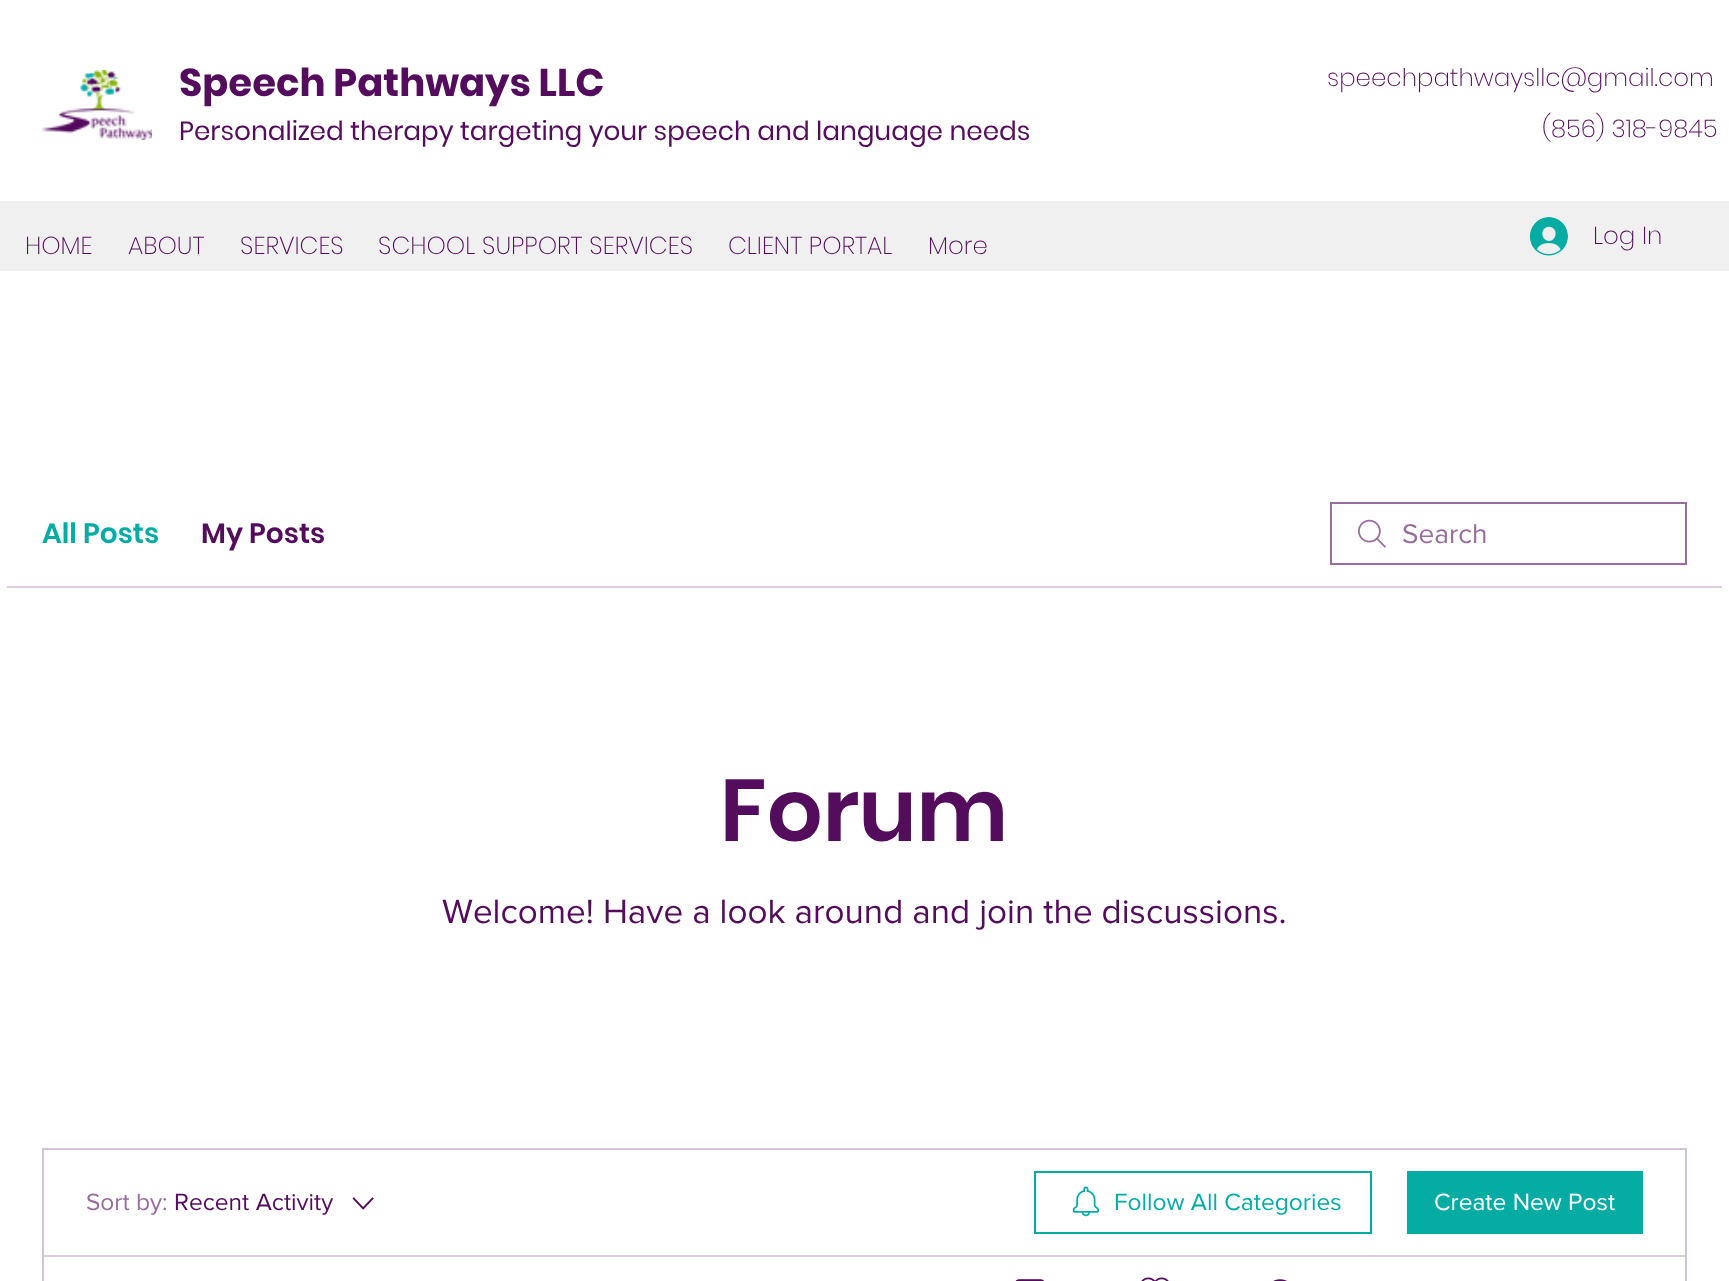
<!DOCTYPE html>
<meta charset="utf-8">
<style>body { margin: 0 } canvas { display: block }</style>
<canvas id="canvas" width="1729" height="1281"></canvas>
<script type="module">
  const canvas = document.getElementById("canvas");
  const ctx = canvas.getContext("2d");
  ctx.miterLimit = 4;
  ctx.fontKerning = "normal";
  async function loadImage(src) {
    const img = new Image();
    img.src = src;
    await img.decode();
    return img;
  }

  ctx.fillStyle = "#ffffff";
  ctx.fillRect(0, 0, 1729, 1281);
  ctx.drawImage(await loadImage("img1.png"), 42, 70, 111, 70);
  ctx.font = "bold 38.5px Poppins";
  ctx.fillStyle = "#540c5c";
  ctx.fillText("Speech Pathways LLC", 179, 96);
  ctx.font = "26.25px Poppins";
  ctx.fillText("Personalized therapy targeting your speech and language needs", 179, 140);
  ctx.font = "200 24.5px Poppins";
  ctx.fillText("speechpathwaysllc@gmail.com", 1327, 86);
  ctx.fillText("(856) 318-9845", 1542, 137);
  ctx.fillStyle = "#f0f0f0";
  ctx.fillRect(0, 201, 1729, 70);
  ctx.fillStyle = "#540c5c";
  ctx.fillText("HOME", 25, 254);
  ctx.fillText("ABOUT", 128, 254);
  ctx.fillText("SERVICES", 240, 254);
  ctx.fillText("SCHOOL SUPPORT SERVICES", 378, 254);
  ctx.fillText("CLIENT PORTAL", 728, 254);
  ctx.fillText("More", 928, 254);
  ctx.drawImage(await loadImage("img2.png"), 1530, 217, 38, 39);
  ctx.fillText("Log In", 1593, 244);
  ctx.fillStyle = "#ddcede";
  ctx.fillRect(7, 586, 1715, 2);
  ctx.font = "600 28px Poppins";
  ctx.fillStyle = "#04aca4";
  ctx.fillText("All Posts", 42, 543);
  ctx.fillStyle = "#540c5c";
  ctx.fillText("My Posts", 201, 543);
  ctx.drawImage(await loadImage("img3.png"), 1358, 519, 28, 29);
  ctx.strokeStyle = "#986d9d";
  ctx.lineWidth = 2;
  ctx.strokeRect(1331, 503, 355, 61);
  ctx.font = "28px 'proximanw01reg'";
  ctx.fillStyle = "#986d9d";
  ctx.fillText("Search", 1402, 543);
  ctx.font = "600 87.5px Poppins";
  ctx.fillStyle = "#540c5c";
  ctx.fillText("Forum", 720, 841);
  ctx.font = "35px 'proximanw01reg'";
  ctx.fillText("Welcome! Have a look around and join the discussions.", 442, 923);
  ctx.strokeStyle = "#d4c2d6";
  ctx.strokeRect(43, 1149, 1643, 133);
  ctx.font = "24.5px 'proximanw01reg'";
  ctx.fillStyle = "#986d9d";
  ctx.fillText("Sort by:", 86, 1210);
  ctx.fillStyle = "#540c5c";
  ctx.fillText("Recent Activity", 174, 1210);
  ctx.drawImage(await loadImage("img4.png"), 352, 1197, 22, 13);
  ctx.strokeStyle = "#04aca4";
  ctx.strokeRect(1035, 1172, 336, 61);
  ctx.drawImage(await loadImage("img5.png"), 1072, 1186, 27, 31);
  ctx.fillStyle = "#04aca4";
  ctx.fillText("Follow All Categories", 1114, 1210);
  ctx.fillRect(1407, 1171, 236, 63);
  ctx.fillStyle = "#ffffff";
  ctx.fillText("Create New Post", 1434, 1210);
  ctx.fillStyle = "#ddcede";
  ctx.fillRect(44, 1255, 1641, 2);
  ctx.drawImage(await loadImage("img6.png"), 1015, 1279, 29, 2);
  ctx.drawImage(await loadImage("img7.png"), 1141, 1277, 28, 4);
  ctx.drawImage(await loadImage("img8.png"), 1273, 1279, 14, 2);
</script>
